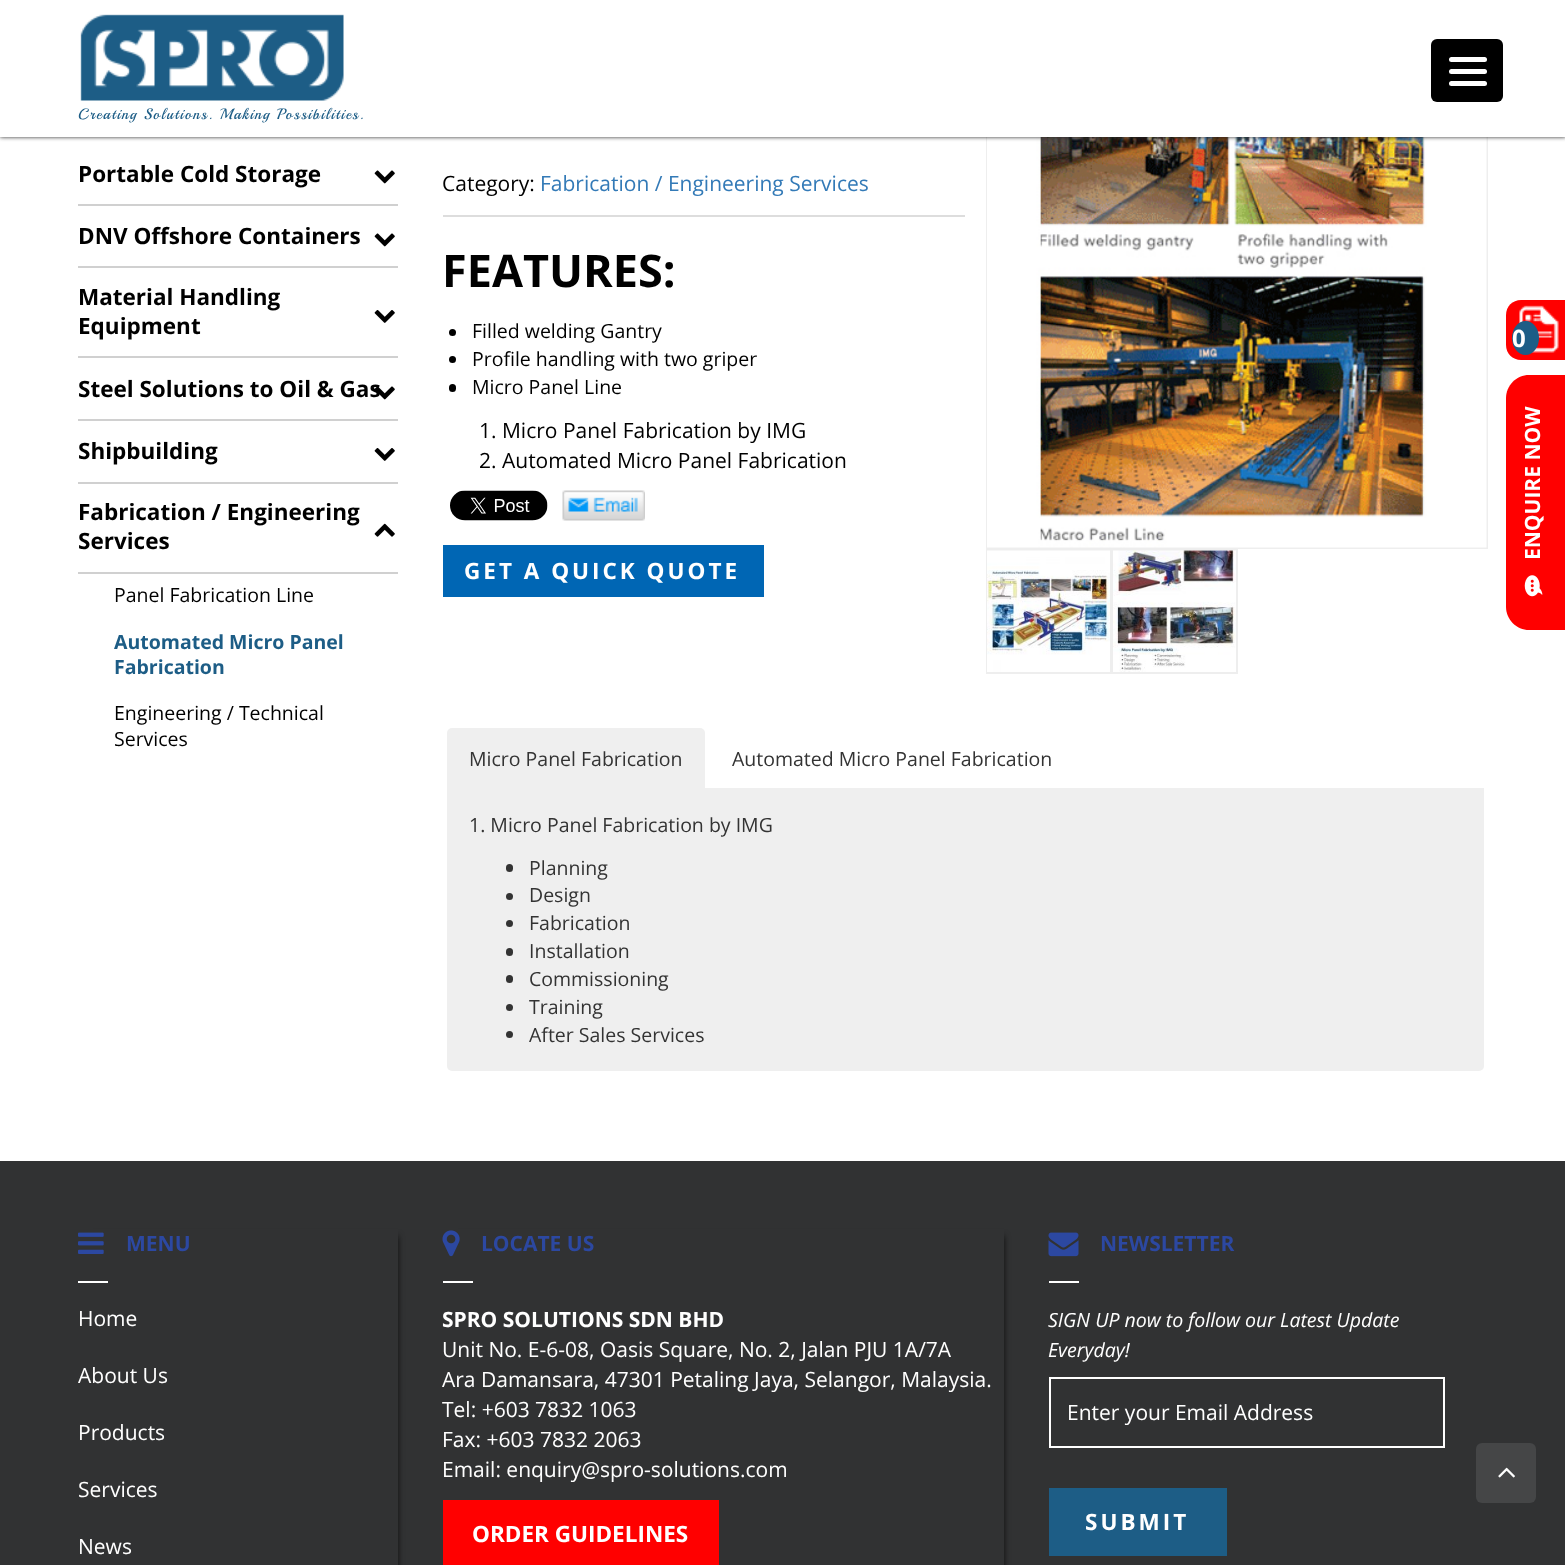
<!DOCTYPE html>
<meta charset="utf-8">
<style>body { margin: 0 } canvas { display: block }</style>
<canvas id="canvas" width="1565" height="1565"></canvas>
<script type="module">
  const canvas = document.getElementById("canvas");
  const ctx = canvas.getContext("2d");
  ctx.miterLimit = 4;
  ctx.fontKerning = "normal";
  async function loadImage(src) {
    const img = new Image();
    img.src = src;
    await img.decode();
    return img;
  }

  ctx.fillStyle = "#ffffff";
  ctx.fillRect(0, 0, 1565, 1565);
  ctx.strokeStyle = "#eeeeee";
  ctx.lineWidth = 2;
  ctx.strokeRect(987, 48, 500, 500);
  ctx.drawImage(await loadImage("img8.png"), 987, 137, 500, 411);
  ctx.fillStyle = "#282828";
  ctx.filter = "blur(2px)";
  ctx.beginPath();
  ctx.rect(0, 0, 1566, 137);
  ctx.fill();
  ctx.filter = "none";
  ctx.fillStyle = "#ffffff";
  ctx.fillRect(0, 0, 1565, 137);
  ctx.fillStyle = "#000000";
  ctx.beginPath();
  ctx.roundRect(1431, 39, 72, 63, 6);
  ctx.fill();
  ctx.fillStyle = "#ffffff";
  ctx.beginPath();
  ctx.roundRect(1449, 69, 38, 5, 2.5);
  ctx.fill();
  ctx.beginPath();
  ctx.roundRect(1449, 57, 38, 5, 2.5);
  ctx.fill();
  ctx.beginPath();
  ctx.roundRect(1449, 81, 38, 5, 2.5);
  ctx.fill();
  ctx.drawImage(await loadImage("img1.png"), 80, 14, 264, 87);
  ctx.letterSpacing = "1.5px";
  ctx.font = "15px Playball";
  ctx.fillStyle = "#1d5d86";
  ctx.fillText("Creating Solutions. Making Possibilities.", 78, 119);
  ctx.fillStyle = "#d0d0d0";
  ctx.fillRect(78, 204, 320, 2);
  ctx.letterSpacing = "0px";
  ctx.font = "bold 22.5px Open Sans";
  ctx.fillStyle = "#000000";
  ctx.fillText("Portable Cold Storage", 78, 182);
  ctx.drawImage(await loadImage("img2.png"), 374, 170, 21, 14);
  ctx.fillStyle = "#d0d0d0";
  ctx.fillRect(78, 266, 320, 2);
  ctx.fillStyle = "#000000";
  ctx.fillText("DNV Offshore Containers", 78, 244);
  ctx.drawImage(await loadImage("img2.png"), 374, 233, 21, 14);
  ctx.fillStyle = "#d0d0d0";
  ctx.fillRect(78, 356, 320, 2);
  ctx.fillStyle = "#000000";
  ctx.fillText("Material Handling", 78, 305);
  ctx.fillText("Equipment", 78, 334);
  ctx.drawImage(await loadImage("img3.png"), 374, 310, 21, 13);
  ctx.fillStyle = "#d0d0d0";
  ctx.fillRect(78, 419, 320, 2);
  ctx.fillStyle = "#000000";
  ctx.fillText("Steel Solutions to Oil & Gas", 78, 397);
  ctx.drawImage(await loadImage("img4.png"), 374, 386, 21, 14);
  ctx.fillStyle = "#d0d0d0";
  ctx.fillRect(78, 482, 320, 2);
  ctx.fillStyle = "#000000";
  ctx.fillText("Shipbuilding", 78, 459);
  ctx.drawImage(await loadImage("img3.png"), 374, 448, 21, 13);
  ctx.fillStyle = "#d0d0d0";
  ctx.fillRect(78, 572, 320, 2);
  ctx.fillStyle = "#000000";
  ctx.fillText("Fabrication / Engineering", 78, 520);
  ctx.fillText("Services", 78, 549);
  ctx.drawImage(await loadImage("img5.png"), 374, 523, 21, 14);
  ctx.font = "19.5px Open Sans";
  ctx.fillText("Panel Fabrication Line", 114, 602);
  ctx.font = "bold 19.5px Open Sans";
  ctx.fillStyle = "#1d5d86";
  ctx.fillText("Automated Micro Panel", 114, 649);
  ctx.fillText("Fabrication", 114, 674);
  ctx.font = "19.5px Open Sans";
  ctx.fillStyle = "#000000";
  ctx.fillText("Engineering / Technical", 114, 720);
  ctx.fillText("Services", 114, 746);
  ctx.fillStyle = "#dddddd";
  ctx.fillRect(443, 215, 522, 2);
  ctx.font = "21px Open Sans";
  ctx.fillStyle = "#000000";
  ctx.fillText("Category:", 442, 191);
  ctx.fillStyle = "#337ab7";
  ctx.fillText("Fabrication / Engineering Services", 540, 191);
  ctx.font = "bold 45px Open Sans";
  ctx.fillStyle = "#000000";
  ctx.fillText("FEATURES:", 442, 287);
  ctx.beginPath();
  ctx.arc(452.5, 332.5, 3.5, 0, Math.PI * 2);
  ctx.fill();
  ctx.font = "19.5px Open Sans";
  ctx.fillText("Filled welding Gantry", 472, 338);
  ctx.beginPath();
  ctx.arc(452.5, 359.5, 3.5, 0, Math.PI * 2);
  ctx.fill();
  ctx.fillText("Profile handling with two griper", 472, 366);
  ctx.beginPath();
  ctx.roundRect(449, 384, 7, 8, 3.5);
  ctx.fill();
  ctx.fillText("Micro Panel Line", 472, 394);
  ctx.font = "21px Open Sans";
  ctx.fillText("1. Micro Panel Fabrication by IMG", 479, 438);
  ctx.fillText("2. Automated Micro Panel Fabrication", 479, 468);
  ctx.drawImage(await loadImage("img6.png"), 450, 490, 98, 31);
  ctx.drawImage(await loadImage("img7.png"), 562, 490, 83, 31);
  ctx.fillStyle = "#0066b4";
  ctx.fillRect(443, 545, 321, 52);
  ctx.letterSpacing = "3px";
  ctx.font = "bold 22.5px Open Sans";
  ctx.fillStyle = "#ffffff";
  ctx.fillText("GET A QUICK QUOTE", 464, 579);
  ctx.strokeRect(987, 550, 124, 123);
  ctx.drawImage(await loadImage("img9.png"), 987, 550, 123, 122);
  ctx.strokeRect(1113, 550, 124, 123);
  ctx.drawImage(await loadImage("img10.png"), 1113, 550, 123, 122);
  ctx.fillStyle = "#efefef";
  ctx.beginPath();
  ctx.roundRect(447, 728, 258, 60, [5, 5, 0, 0]);
  ctx.fill();
  ctx.letterSpacing = "0px";
  ctx.font = "19.5px Open Sans";
  ctx.fillStyle = "#333333";
  ctx.fillText("Micro Panel Fabrication", 469, 766);
  ctx.fillText("Automated Micro Panel Fabrication", 732, 766);
  ctx.fillStyle = "#efefef";
  ctx.beginPath();
  ctx.roundRect(447, 788, 1037, 283, [0, 0, 5, 5]);
  ctx.fill();
  ctx.fillStyle = "#333333";
  ctx.fillText("1. Micro Panel Fabrication by IMG", 469, 832);
  ctx.beginPath();
  ctx.roundRect(506, 864, 7, 8, 3.5);
  ctx.fill();
  ctx.fillText("Planning", 529, 875);
  ctx.beginPath();
  ctx.arc(509.5, 896.5, 3.5, 0, Math.PI * 2);
  ctx.fill();
  ctx.fillText("Design", 529, 902);
  ctx.beginPath();
  ctx.arc(509.5, 923.5, 3.5, 0, Math.PI * 2);
  ctx.fill();
  ctx.fillText("Fabrication", 529, 930);
  ctx.beginPath();
  ctx.roundRect(506, 948, 7, 8, 3.5);
  ctx.fill();
  ctx.fillText("Installation", 529, 958);
  ctx.beginPath();
  ctx.roundRect(506, 975, 7, 8, 3.5);
  ctx.fill();
  ctx.fillText("Commissioning", 529, 986);
  ctx.beginPath();
  ctx.arc(509.5, 1007.5, 3.5, 0, Math.PI * 2);
  ctx.fill();
  ctx.fillText("Training", 529, 1014);
  ctx.beginPath();
  ctx.arc(509.5, 1034.5, 3.5, 0, Math.PI * 2);
  ctx.fill();
  ctx.fillText("After Sales Services", 529, 1042);
  ctx.fillStyle = "#ff0000";
  ctx.beginPath();
  ctx.moveTo(1521, 300);
  ctx.lineTo(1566, 300);
  ctx.lineTo(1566, 360);
  ctx.lineTo(1521, 360);
  ctx.bezierCurveTo(1512.5, 360, 1506, 353.5, 1506, 345);
  ctx.lineTo(1506, 315);
  ctx.bezierCurveTo(1506, 306.5, 1512.5, 300, 1521, 300);
  ctx.closePath();
  ctx.fill();
  ctx.drawImage(await loadImage("img11.png"), 1513, 305, 46, 48);
  ctx.fillStyle = "#1d5d86";
  ctx.beginPath();
  ctx.ellipse(1525.5, 338, 13.5, 17, 0, 0, Math.PI * 2);
  ctx.fill();
  ctx.font = "bold 24px Open Sans";
  ctx.fillStyle = "#ffffff";
  ctx.fillText("0", 1512, 347);
  ctx.fillStyle = "#ff0000";
  ctx.beginPath();
  ctx.moveTo(1529, 375);
  ctx.lineTo(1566, 375);
  ctx.lineTo(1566, 630);
  ctx.lineTo(1529, 630);
  ctx.bezierCurveTo(1516.5, 630, 1506, 619.5, 1506, 607);
  ctx.lineTo(1506, 398);
  ctx.bezierCurveTo(1506, 385.5, 1516.5, 375, 1529, 375);
  ctx.closePath();
  ctx.fill();
  ctx.font = "bold 21px Open Sans";
  ctx.fillStyle = "#ffffff";
  ctx.save();
  ctx.translate(1540, 560);
  ctx.rotate(-90 * Math.PI / 180);
  ctx.fillText("ENQUIRE NOW", 0, 0);
  ctx.restore();
  ctx.drawImage(await loadImage("img12.png"), 1524, 575, 19, 22);
  ctx.fillStyle = "#313233";
  ctx.fillRect(0, 1161, 1565, 404);
  ctx.save();
  ctx.beginPath();
  ctx.moveTo(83, 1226);
  ctx.lineTo(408, 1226);
  ctx.lineTo(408, 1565);
  ctx.lineTo(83, 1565);
  ctx.closePath();
  ctx.moveTo(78, 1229);
  ctx.lineTo(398, 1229);
  ctx.lineTo(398, 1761);
  ctx.lineTo(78, 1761);
  ctx.closePath();
  ctx.clip("evenodd");
  ctx.fillStyle = "#0d0d0d";
  ctx.filter = "blur(3px)";
  ctx.beginPath();
  ctx.rect(93, 1236, 305, 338);
  ctx.fill();
  ctx.filter = "none";
  ctx.restore();
  ctx.drawImage(await loadImage("img13.png"), 78, 1232, 26, 22);
  ctx.fillStyle = "#2c48a1";
  ctx.fillText("MENU", 126, 1251);
  ctx.fillStyle = "#ffffff";
  ctx.fillRect(78, 1281, 30, 2);
  ctx.font = "21px Open Sans";
  ctx.fillText("Home", 78, 1326);
  ctx.fillText("About Us", 78, 1383);
  ctx.fillText("Products", 78, 1440);
  ctx.fillText("Services", 78, 1497);
  ctx.fillText("News", 78, 1554);
  ctx.save();
  ctx.beginPath();
  ctx.moveTo(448, 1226);
  ctx.lineTo(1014, 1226);
  ctx.lineTo(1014, 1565);
  ctx.lineTo(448, 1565);
  ctx.closePath();
  ctx.moveTo(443, 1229);
  ctx.lineTo(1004, 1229);
  ctx.lineTo(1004, 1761);
  ctx.lineTo(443, 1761);
  ctx.closePath();
  ctx.clip("evenodd");
  ctx.fillStyle = "#0d0d0d";
  ctx.filter = "blur(3px)";
  ctx.beginPath();
  ctx.rect(458, 1236, 546, 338);
  ctx.fill();
  ctx.filter = "none";
  ctx.restore();
  ctx.drawImage(await loadImage("img14.png"), 442, 1230, 18, 27);
  ctx.font = "bold 21px Open Sans";
  ctx.fillStyle = "#2c48a1";
  ctx.fillText("LOCATE US", 481, 1251);
  ctx.fillStyle = "#ffffff";
  ctx.fillRect(443, 1281, 30, 2);
  ctx.fillText("SPRO SOLUTIONS SDN BHD", 442, 1327);
  ctx.font = "21px Open Sans";
  ctx.fillText("Unit No. E-6-08, Oasis Square, No. 2, Jalan PJU 1A/7A", 442, 1357);
  ctx.fillText("Ara Damansara, 47301 Petaling Jaya, Selangor, Malaysia.", 442, 1387);
  ctx.fillText("Tel: +603 7832 1063", 442, 1417);
  ctx.fillText("Fax: +603 7832 2063", 442, 1447);
  ctx.fillText("Email: enquiry@spro-solutions.com", 442, 1477);
  ctx.fillStyle = "#ff0000";
  ctx.fillRect(443, 1500, 276, 65);
  ctx.font = "bold 22.5px Open Sans";
  ctx.fillStyle = "#ffffff";
  ctx.fillText("ORDER GUIDELINES", 472, 1542);
  ctx.drawImage(await loadImage("img15.png"), 1048, 1232, 31, 25);
  ctx.font = "bold 21px Open Sans";
  ctx.fillStyle = "#2c48a1";
  ctx.fillText("NEWSLETTER", 1100, 1251);
  ctx.fillStyle = "#ffffff";
  ctx.fillRect(1049, 1281, 30, 2);
  ctx.font = "italic 19.5px Open Sans";
  ctx.fillText("SIGN UP now to follow our Latest Update", 1048, 1327);
  ctx.fillText("Everyday!", 1048, 1357);
  ctx.strokeStyle = "#ffffff";
  ctx.strokeRect(1050, 1378, 394, 69);
  ctx.font = "21px Open Sans";
  ctx.fillText("Enter your Email Address", 1067, 1420);
  ctx.fillStyle = "#1d5d86";
  ctx.fillRect(1049, 1488, 178, 68);
  ctx.letterSpacing = "3px";
  ctx.font = "bold 22.5px Open Sans";
  ctx.fillStyle = "#ffffff";
  ctx.fillText("SUBMIT", 1085, 1530);
  ctx.fillStyle = "#454647";
  ctx.beginPath();
  ctx.roundRect(1476, 1443, 60, 60, 6);
  ctx.fill();
  ctx.drawImage(await loadImage("img16.png"), 1498, 1467, 17, 11);
</script>
